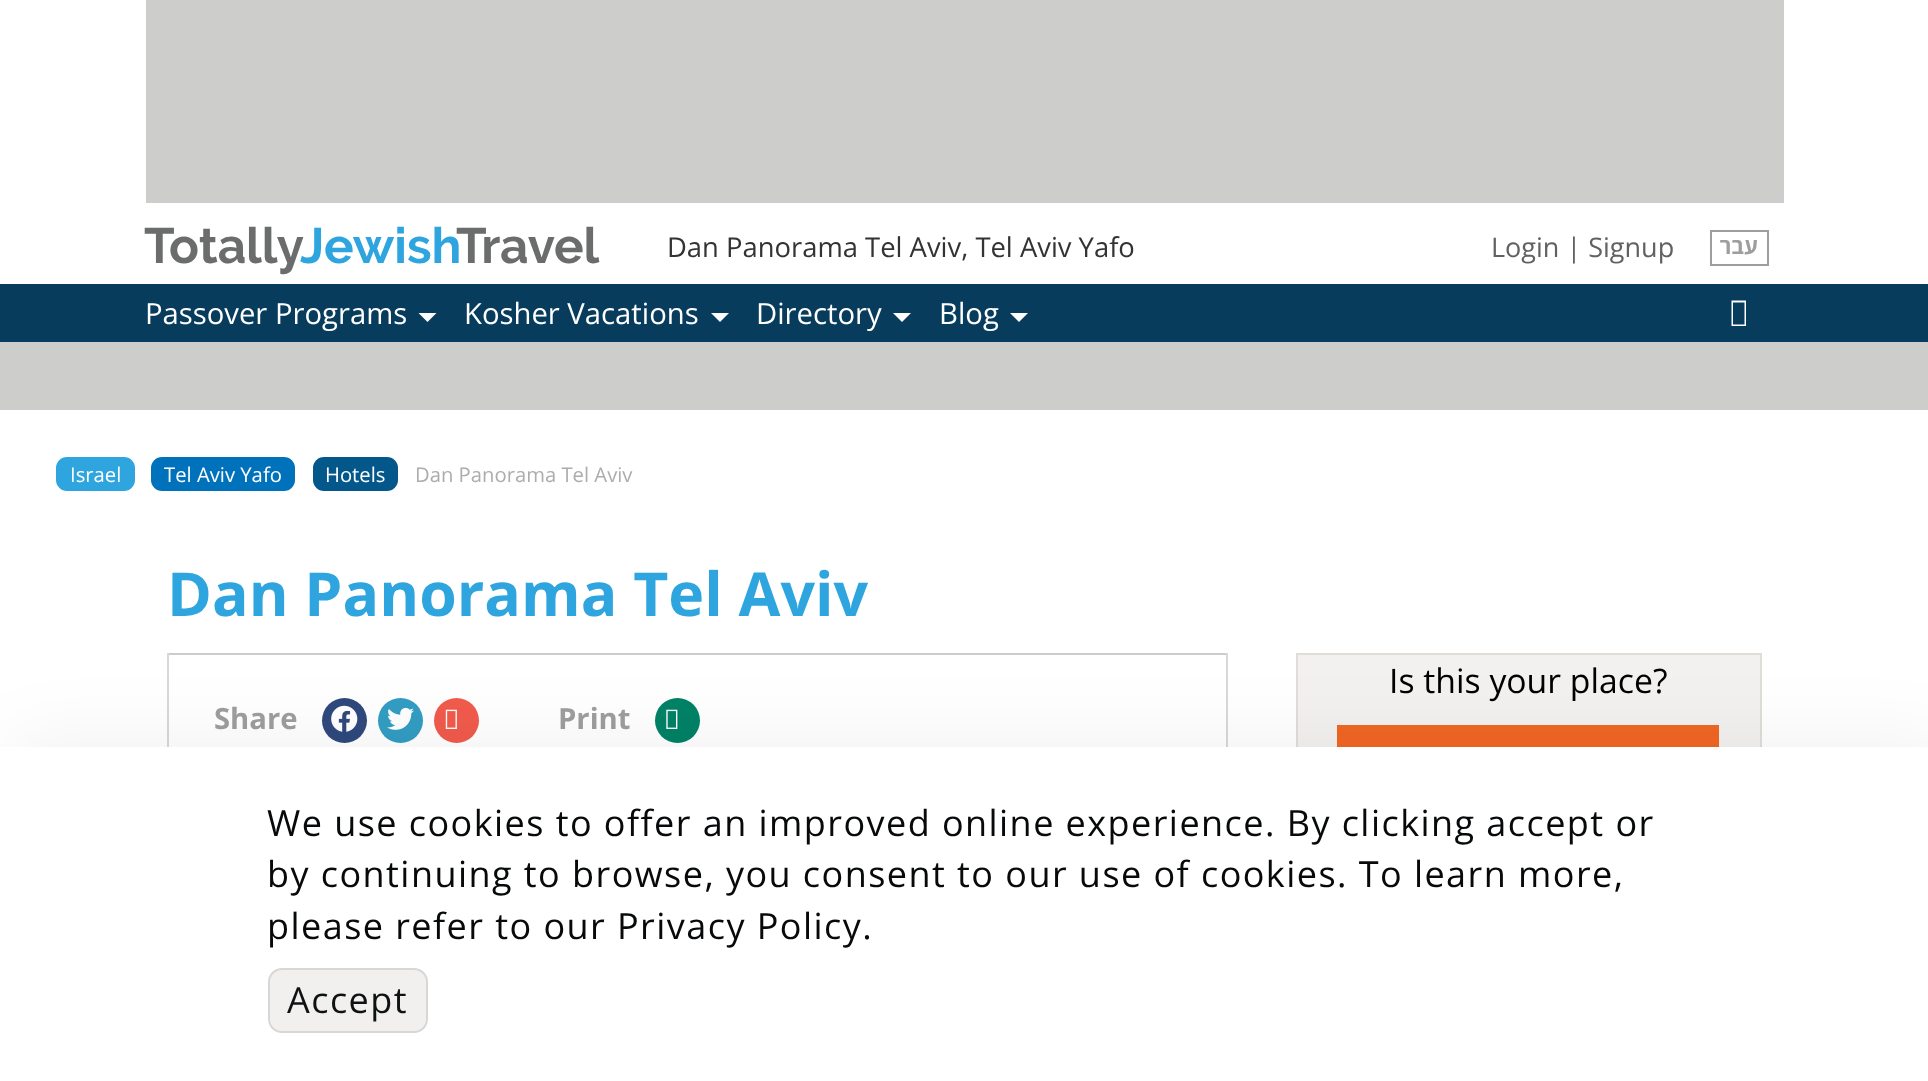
<!DOCTYPE html>
<meta charset="utf-8">
<style>body { margin: 0 } canvas { display: block }</style>
<canvas id="canvas" width="1928" height="1081"></canvas>
<script type="module">
  const canvas = document.getElementById("canvas");
  const ctx = canvas.getContext("2d");
  ctx.miterLimit = 4;
  ctx.fontKerning = "normal";
  async function loadImage(src) {
    const img = new Image();
    img.src = src;
    await img.decode();
    return img;
  }

  ctx.fillStyle = "#ffffff";
  ctx.fillRect(0, 0, 1928, 1081);
  ctx.fillStyle = "#cdcdcc";
  ctx.fillRect(146, 0, 1638, 203);
  ctx.font = "bold 49.5px Raleway";
  ctx.fillStyle = "#6b6c6c";
  ctx.fillText("Totally", 144, 263);
  ctx.fillStyle = "#2ea5de";
  ctx.fillText("Jewish", 300, 263);
  ctx.fillStyle = "#6b6c6c";
  ctx.fillText("Travel", 456, 263);
  ctx.font = "27.4px Open Sans";
  ctx.fillStyle = "#333333";
  ctx.fillText("Dan Panorama Tel Aviv, Tel Aviv Yafo", 667, 257);
  ctx.font = "27px Open Sans";
  ctx.fillStyle = "#626161";
  ctx.fillText("Login | Signup", 1491, 257);
  ctx.strokeStyle = "#9e9e9e";
  ctx.lineWidth = 2;
  ctx.strokeRect(1711, 231, 57, 34);
  ctx.direction = "rtl";
  ctx.font = "bold 22px Open Sans";
  ctx.fillStyle = "#9e9e9e";
  ctx.fillText("עבר", 1758, 254);
  ctx.fillStyle = "#083c5d";
  ctx.fillRect(0, 284, 1928, 58);
  ctx.direction = "ltr";
  ctx.font = "29.25px Open Sans";
  ctx.fillStyle = "#ffffff";
  ctx.fillText("Passover Programs", 145, 324);
  ctx.beginPath();
  ctx.moveTo(418.5, 313);
  ctx.lineTo(436.5, 313);
  ctx.lineTo(427.5, 322);
  ctx.closePath();
  ctx.fill();
  ctx.fillText("Kosher Vacations", 464, 324);
  ctx.beginPath();
  ctx.moveTo(711, 313);
  ctx.lineTo(729, 313);
  ctx.lineTo(720, 322);
  ctx.closePath();
  ctx.fill();
  ctx.fillText("Directory", 756, 324);
  ctx.beginPath();
  ctx.moveTo(893, 313);
  ctx.lineTo(911, 313);
  ctx.lineTo(902, 322);
  ctx.closePath();
  ctx.fill();
  ctx.fillText("Blog", 939, 324);
  ctx.beginPath();
  ctx.moveTo(1010, 313);
  ctx.lineTo(1028, 313);
  ctx.lineTo(1019, 322);
  ctx.closePath();
  ctx.fill();
  ctx.beginPath();
  ctx.moveTo(1731.5, 326);
  ctx.lineTo(1731.5, 300.5);
  ctx.lineTo(1746, 300.5);
  ctx.lineTo(1746, 326);
  ctx.closePath();
  ctx.moveTo(1733, 324.5);
  ctx.lineTo(1744.5, 324.5);
  ctx.lineTo(1744.5, 302.5);
  ctx.lineTo(1733, 302.5);
  ctx.closePath();
  ctx.fill();
  ctx.fillStyle = "#cdcdcc";
  ctx.fillRect(0, 342, 1928, 68);
  ctx.fillStyle = "#2ea5de";
  ctx.beginPath();
  ctx.roundRect(56, 457, 79, 34, 11);
  ctx.fill();
  ctx.font = "20.25px Open Sans";
  ctx.fillStyle = "#ffffff";
  ctx.fillText("Israel", 70, 482);
  ctx.fillStyle = "#0072bc";
  ctx.beginPath();
  ctx.roundRect(151, 457, 144, 34, 11);
  ctx.fill();
  ctx.fillStyle = "#ffffff";
  ctx.fillText("Tel Aviv Yafo", 164, 482);
  ctx.fillStyle = "#04578b";
  ctx.beginPath();
  ctx.roundRect(313, 457, 85, 34, 11);
  ctx.fill();
  ctx.fillStyle = "#ffffff";
  ctx.fillText("Hotels", 325, 482);
  ctx.fillStyle = "#aeadae";
  ctx.fillText("Dan Panorama Tel Aviv", 415, 482);
  ctx.font = "bold 60.75px Open Sans";
  ctx.fillStyle = "#2ea5de";
  ctx.fillText("Dan Panorama Tel Aviv", 167, 616);
  ctx.fillStyle = "#f2f1f0";
  ctx.fillRect(1298, 655, 462, 92);
  ctx.strokeStyle = "#e0ddd9";
  ctx.strokeRect(1297, 654, 464, 139);
  ctx.font = "33.75px Open Sans";
  ctx.fillStyle = "#000000";
  ctx.fillText("Is this your place?", 1389, 693);
  ctx.fillStyle = "#f16623";
  ctx.fillRect(1337, 725, 382, 22);
  ctx.fillStyle = "#d7d9d8";
  ctx.fillRect(1226, 653, 2, 94);
  ctx.fillRect(167, 653, 2, 94);
  ctx.fillStyle = "#cccccc";
  ctx.fillRect(169, 653, 1057, 2);
  ctx.font = "bold 29.25px Open Sans";
  ctx.fillStyle = "#9e9e9e";
  ctx.fillText("Share", 214, 729);
  ctx.fillStyle = "#30497d";
  ctx.beginPath();
  ctx.arc(344.5, 720.5, 22.5, 0, Math.PI * 2);
  ctx.fill();
  ctx.drawImage(await loadImage("img1.png"), 331, 705, 27, 27);
  ctx.fillStyle = "#339dc3";
  ctx.beginPath();
  ctx.arc(400.5, 720.5, 22.5, 0, Math.PI * 2);
  ctx.fill();
  ctx.drawImage(await loadImage("img2.png"), 387, 707, 27, 23);
  ctx.fillStyle = "#f15b4c";
  ctx.beginPath();
  ctx.arc(456.5, 720.5, 22.5, 0, Math.PI * 2);
  ctx.fill();
  ctx.drawImage(await loadImage("img3.png"), 445, 709, 12, 20);
  ctx.fillStyle = "#9e9e9e";
  ctx.fillText("Print", 558, 729);
  ctx.fillStyle = "#008266";
  ctx.beginPath();
  ctx.arc(677.5, 720.5, 22.5, 0, Math.PI * 2);
  ctx.fill();
  ctx.drawImage(await loadImage("img4.png"), 666, 709, 12, 20);
  ctx.fillStyle = "rgba(0, 0, 0, 0.06)";
  ctx.filter = "blur(38px)";
  ctx.beginPath();
  ctx.rect(16, 743, 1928, 335);
  ctx.fill();
  ctx.filter = "none";
  ctx.fillStyle = "#ffffff";
  ctx.fillRect(0, 747, 1928, 334);
  ctx.letterSpacing = "1.45px";
  ctx.font = "36px Open Sans";
  ctx.fillStyle = "#07090a";
  ctx.fillText("We use cookies to offer an improved online experience. By clicking accept or", 267, 836);
  ctx.fillText("by continuing to browse, you consent to our use of cookies. To learn more,", 267, 887);
  ctx.fillText("please refer to our Privacy Policy.", 267, 939);
  ctx.fillStyle = "#f1f0ef";
  ctx.beginPath();
  ctx.roundRect(268, 968, 160, 65, 14);
  ctx.fill();
  ctx.beginPath();
  ctx.roundRect(269, 969, 158, 63, 13);
  ctx.strokeStyle = "rgba(0, 0, 0, 0.1)";
  ctx.stroke();
  ctx.fillStyle = "#0e1213";
  ctx.fillText("Accept", 287, 1013);
</script>
